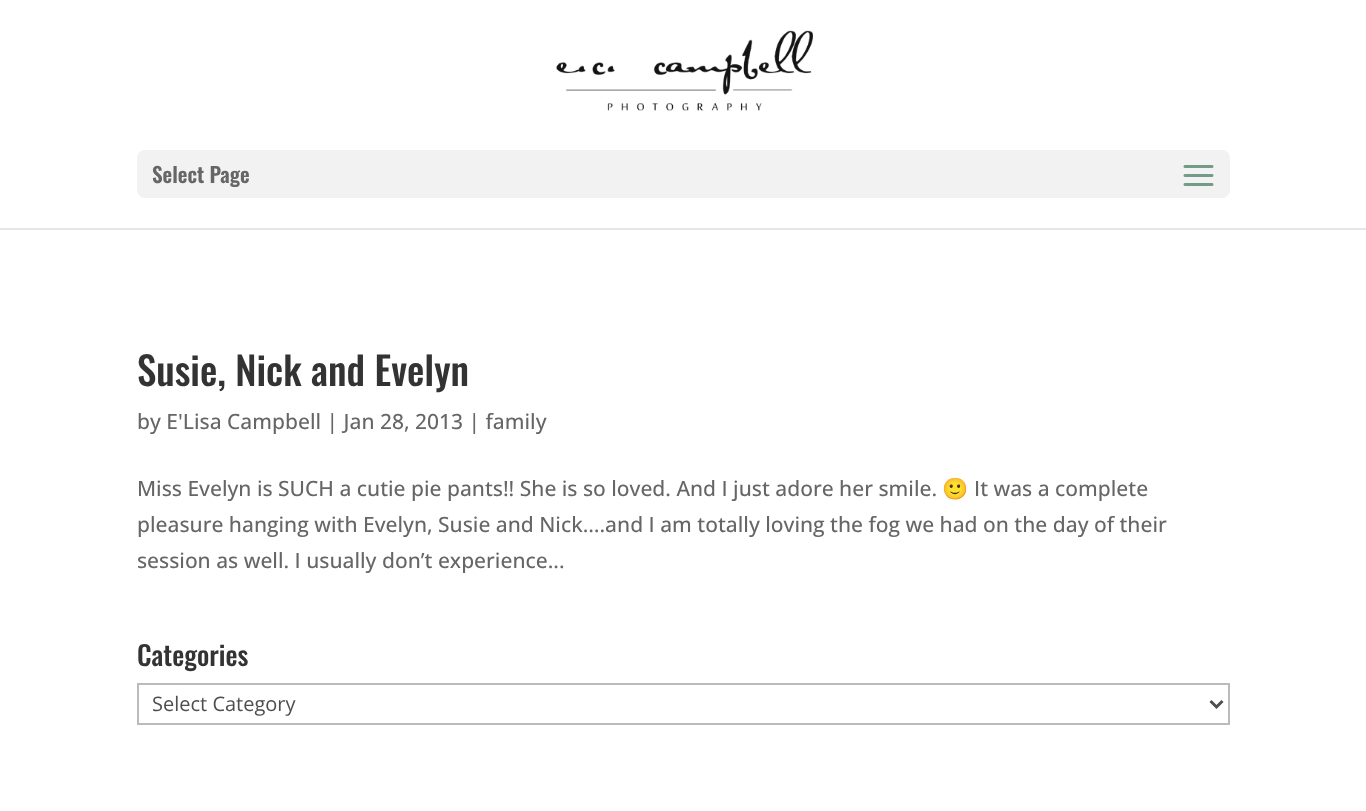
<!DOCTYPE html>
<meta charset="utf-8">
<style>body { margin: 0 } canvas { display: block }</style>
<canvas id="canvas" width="1366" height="811"></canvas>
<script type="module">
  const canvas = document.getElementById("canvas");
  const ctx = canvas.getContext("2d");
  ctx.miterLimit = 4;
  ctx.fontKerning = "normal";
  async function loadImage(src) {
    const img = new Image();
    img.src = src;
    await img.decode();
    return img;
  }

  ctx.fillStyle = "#ffffff";
  ctx.fillRect(0, 0, 1366, 811);
  ctx.fillStyle = "#e6e6e6";
  ctx.beginPath();
  ctx.moveTo(0, 228);
  ctx.lineTo(0, 230);
  ctx.lineTo(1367, 230);
  ctx.lineTo(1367, 2);
  ctx.lineTo(1366, 2);
  ctx.lineTo(1366, 228);
  ctx.closePath();
  ctx.fill();
  ctx.drawImage(await loadImage("img1.png"), 556, 30, 257, 81);
  ctx.fillStyle = "#f2f2f2";
  ctx.beginPath();
  ctx.roundRect(137, 150, 1093, 48, 8);
  ctx.fill();
  ctx.font = "600 21px Oswald";
  ctx.fillStyle = "#666666";
  ctx.fillText("Select Page", 152, 183);
  ctx.drawImage(await loadImage("img2.png"), 1183, 165, 31, 21);
  ctx.font = "500 39px Oswald";
  ctx.fillStyle = "#333333";
  ctx.fillText("Susie, Nick and Evelyn", 137, 386);
  ctx.font = "500 21px Open Sans";
  ctx.fillStyle = "#666666";
  ctx.fillText("by E'Lisa Campbell | Jan 28, 2013 | family", 137, 429);
  ctx.fillText("Miss Evelyn is SUCH a cutie pie pants!! She is so loved. And I just adore her smile.", 137, 496);
  ctx.font = "21px Noto Color Emoji";
  ctx.fillText("🙂", 942, 496);
  ctx.font = "500 21px Open Sans";
  ctx.fillText("It was a complete", 974, 496);
  ctx.fillText("pleasure hanging with Evelyn, Susie and Nick….and I am totally loving the fog we had on the day of their", 137, 532);
  ctx.fillText("session as well. I usually don’t experience...", 137, 568);
  ctx.font = "500 27px Oswald";
  ctx.fillStyle = "#333333";
  ctx.fillText("Categories", 137, 666);
  ctx.strokeStyle = "#bbbbbb";
  ctx.lineWidth = 2;
  ctx.strokeRect(138, 684, 1091, 40);
  ctx.beginPath();
  ctx.moveTo(1210.5, 701);
  ctx.lineTo(1216.5, 707);
  ctx.lineTo(1222.5, 701);
  ctx.strokeStyle = "#4e4e4e";
  ctx.lineWidth = 3;
  ctx.stroke();
  ctx.font = "20px Open Sans";
  ctx.fillStyle = "#4e4e4e";
  ctx.fillText("Select Category", 152, 711);
</script>
